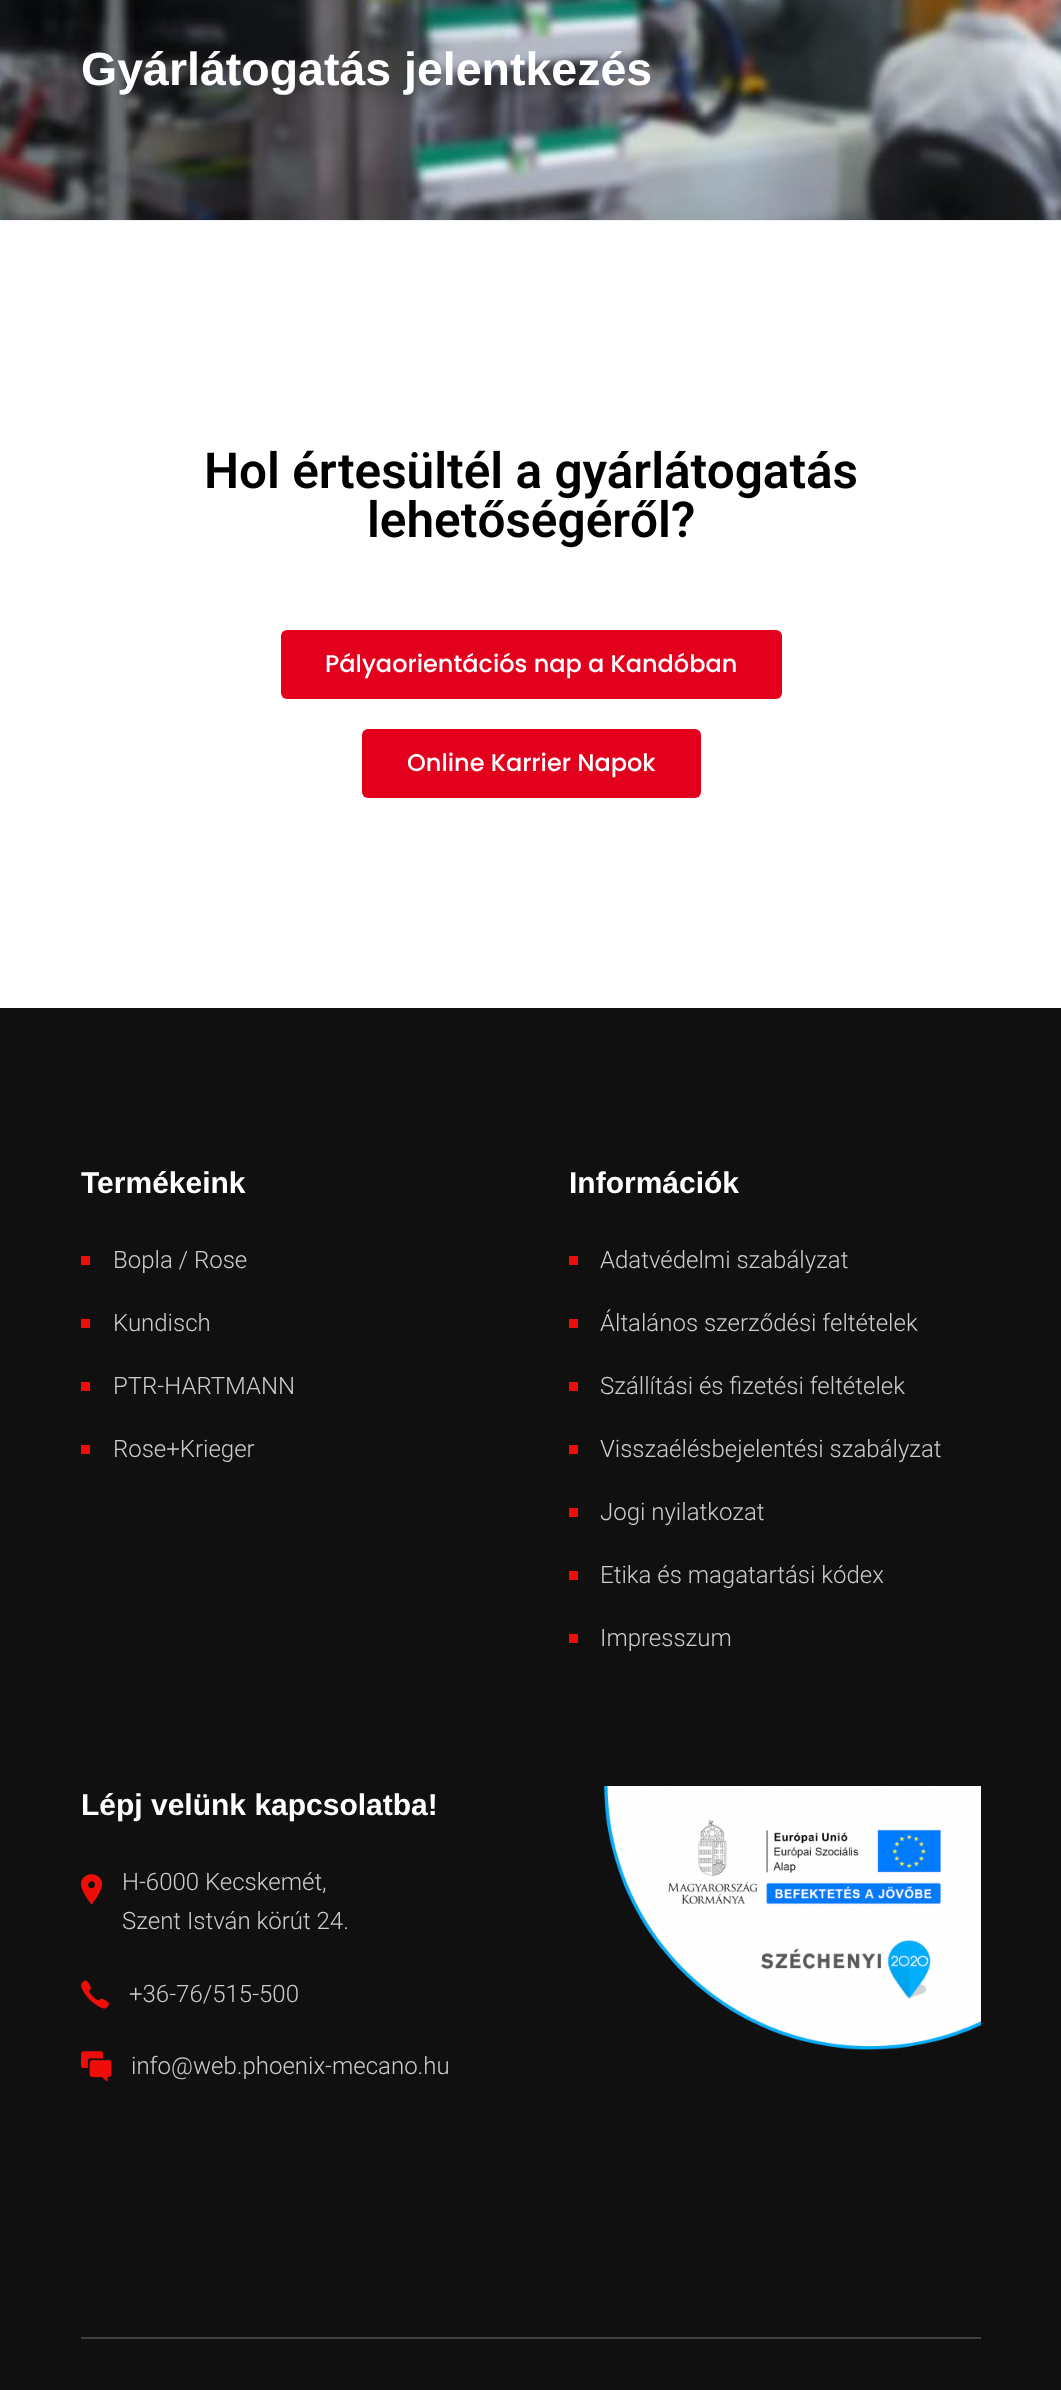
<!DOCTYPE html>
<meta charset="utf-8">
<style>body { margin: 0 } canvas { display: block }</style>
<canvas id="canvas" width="1061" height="2390"></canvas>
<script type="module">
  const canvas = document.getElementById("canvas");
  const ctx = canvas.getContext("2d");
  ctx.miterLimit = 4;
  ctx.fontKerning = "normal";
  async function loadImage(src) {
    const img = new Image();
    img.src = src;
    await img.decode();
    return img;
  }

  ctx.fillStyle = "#ffffff";
  ctx.fillRect(0, 0, 1061, 2390);
  ctx.fillStyle = "#f1f3f5";
  ctx.fillRect(0, 220, 1061, 1);
  ctx.drawImage(await loadImage("img1.png"), 0, 0, 1061, 220);
  ctx.font = "bold 46.5px Liberation Sans";
  ctx.fillStyle = "#ffffff";
  ctx.fillText("Gyárlátogatás jelentkezés", 81, 85);
  ctx.font = "600 49.5px Roboto";
  ctx.fillStyle = "#000000";
  ctx.fillText("Hol értesültél a gyárlátogatás", 204, 488);
  ctx.fillText("lehetőségéről?", 367, 537);
  ctx.fillStyle = "#e3001d";
  ctx.beginPath();
  ctx.roundRect(281, 630, 501, 69, 6);
  ctx.fill();
  ctx.font = "500 24px Poppins";
  ctx.fillStyle = "#ffffff";
  ctx.fillText("Pályaorientációs nap a Kandóban", 325, 672);
  ctx.fillStyle = "#e3001d";
  ctx.beginPath();
  ctx.roundRect(362, 729, 339, 69, 6);
  ctx.fill();
  ctx.fillStyle = "#ffffff";
  ctx.fillText("Online Karrier Napok", 407, 771);
  ctx.fillStyle = "#101010";
  ctx.fillRect(0, 1008, 1061, 1382);
  ctx.font = "bold 30px Liberation Sans";
  ctx.fillStyle = "#ffffff";
  ctx.fillText("Termékeink", 81, 1193);
  ctx.fillStyle = "#ee0d08";
  ctx.fillRect(81, 1256, 9, 9);
  ctx.font = "300 24px Roboto";
  ctx.fillStyle = "#cccccc";
  ctx.fillText("Bopla / Rose", 113, 1268);
  ctx.fillStyle = "#ee0d08";
  ctx.fillRect(81, 1319, 9, 9);
  ctx.fillStyle = "#cccccc";
  ctx.fillText("Kundisch", 113, 1331);
  ctx.fillStyle = "#ee0d08";
  ctx.fillRect(81, 1382, 9, 9);
  ctx.fillStyle = "#cccccc";
  ctx.fillText("PTR-HARTMANN", 113, 1394);
  ctx.fillStyle = "#ee0d08";
  ctx.fillRect(81, 1445, 9, 9);
  ctx.fillStyle = "#cccccc";
  ctx.fillText("Rose+Krieger", 113, 1457);
  ctx.font = "bold 30px Liberation Sans";
  ctx.fillStyle = "#ffffff";
  ctx.fillText("Információk", 569, 1193);
  ctx.fillStyle = "#ee0d08";
  ctx.fillRect(569, 1256, 9, 9);
  ctx.font = "300 24px Roboto";
  ctx.fillStyle = "#cccccc";
  ctx.fillText("Adatvédelmi szabályzat", 600, 1268);
  ctx.fillStyle = "#ee0d08";
  ctx.fillRect(569, 1319, 9, 9);
  ctx.fillStyle = "#cccccc";
  ctx.fillText("Általános szerződési feltételek", 600, 1331);
  ctx.fillStyle = "#ee0d08";
  ctx.fillRect(569, 1382, 9, 9);
  ctx.fillStyle = "#cccccc";
  ctx.fillText("Szállítási és fizetési feltételek", 600, 1394);
  ctx.fillStyle = "#ee0d08";
  ctx.fillRect(569, 1445, 9, 9);
  ctx.fillStyle = "#cccccc";
  ctx.fillText("Visszaélésbejelentési szabályzat", 600, 1457);
  ctx.fillStyle = "#ee0d08";
  ctx.fillRect(569, 1508, 9, 9);
  ctx.fillStyle = "#cccccc";
  ctx.fillText("Jogi nyilatkozat", 600, 1520);
  ctx.fillStyle = "#ee0d08";
  ctx.fillRect(569, 1571, 9, 9);
  ctx.fillStyle = "#cccccc";
  ctx.fillText("Etika és magatartási kódex", 600, 1583);
  ctx.fillStyle = "#ee0d08";
  ctx.fillRect(569, 1634, 9, 9);
  ctx.fillStyle = "#cccccc";
  ctx.fillText("Impresszum", 600, 1646);
  ctx.font = "bold 30px Liberation Sans";
  ctx.fillStyle = "#ffffff";
  ctx.fillText("Lépj velünk kapcsolatba!", 81, 1815);
  ctx.drawImage(await loadImage("img2.png"), 81, 1874, 22, 31);
  ctx.font = "300 24px Roboto";
  ctx.fillStyle = "#cccccc";
  ctx.fillText("H-6000 Kecskemét,", 122, 1890);
  ctx.fillText("Szent István körút 24.", 122, 1929);
  ctx.drawImage(await loadImage("img3.png"), 81, 1980, 29, 29);
  ctx.fillText("+36-76/515-500", 129, 2002);
  ctx.drawImage(await loadImage("img4.png"), 81, 2051, 31, 31);
  ctx.fillText("info@web.phoenix-mecano.hu", 131, 2074);
  ctx.drawImage(await loadImage("img5.png"), 604, 1786, 377, 264);
  ctx.fillStyle = "#404040";
  ctx.fillRect(81, 2337, 900, 2);
</script>
